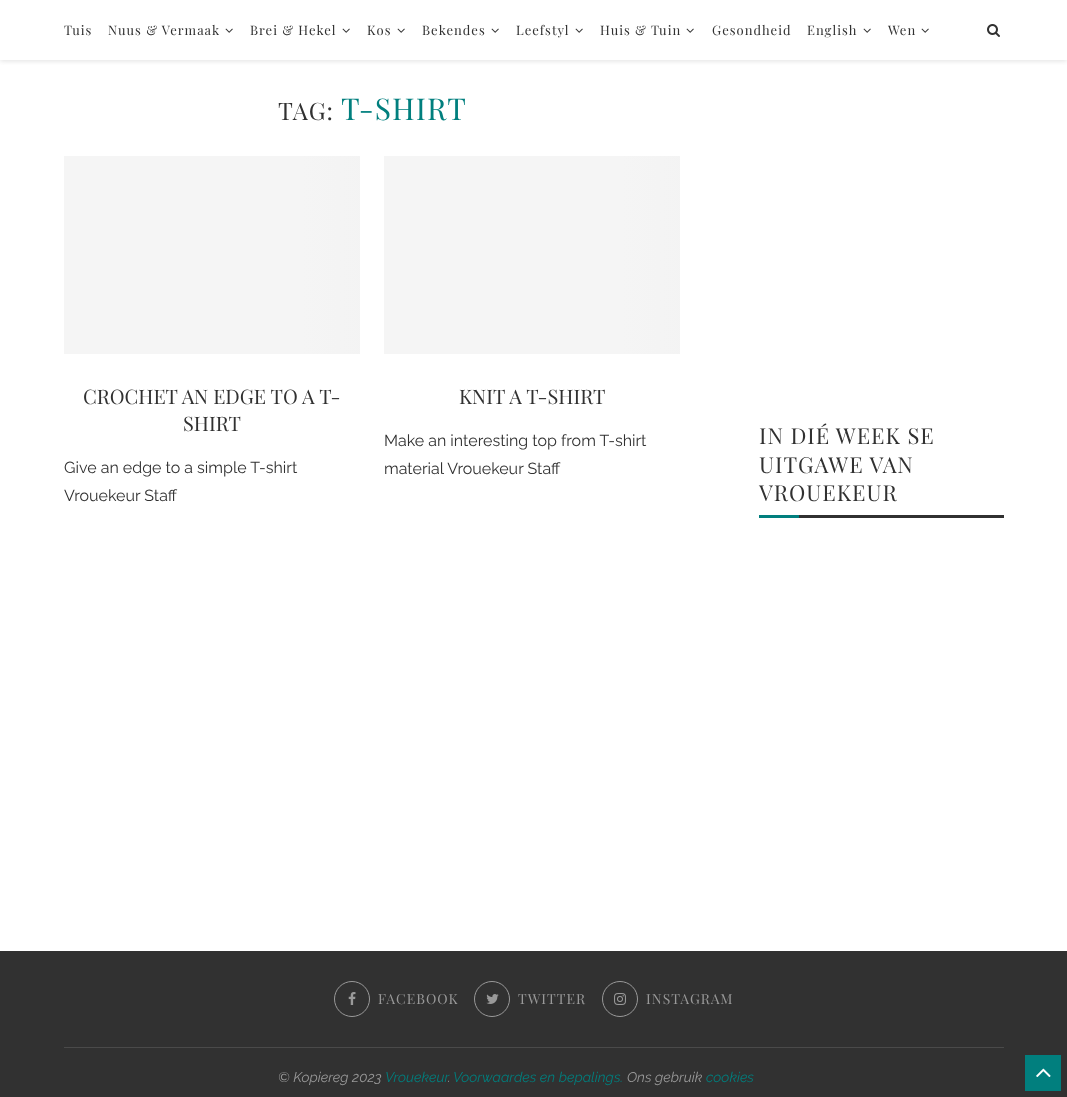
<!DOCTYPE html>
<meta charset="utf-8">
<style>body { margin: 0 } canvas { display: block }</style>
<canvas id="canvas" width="1067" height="1097"></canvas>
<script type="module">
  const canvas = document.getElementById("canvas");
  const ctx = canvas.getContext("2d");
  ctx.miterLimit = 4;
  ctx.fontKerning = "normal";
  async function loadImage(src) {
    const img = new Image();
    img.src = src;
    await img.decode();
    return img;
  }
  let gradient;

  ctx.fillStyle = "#ffffff";
  ctx.fillRect(0, 0, 1067, 1097);
  ctx.save();
  ctx.beginPath();
  ctx.rect(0, 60, 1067, 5);
  ctx.clip();
  ctx.fillStyle = "rgba(190, 190, 190, 0.46)";
  ctx.filter = "blur(2.5px)";
  ctx.beginPath();
  ctx.rect(0, 1, 1067, 60);
  ctx.fill();
  ctx.filter = "none";
  ctx.restore();
  ctx.letterSpacing = "1px";
  ctx.font = "13px Playfair Display";
  ctx.fillStyle = "#313131";
  ctx.fillText("Tuis", 64, 35);
  ctx.fillText("Nuus & Vermaak", 108, 35);
  ctx.drawImage(await loadImage("img1.png"), 225, 28, 8, 5);
  ctx.fillText("Brei & Hekel", 250, 35);
  ctx.drawImage(await loadImage("img1.png"), 342, 28, 8, 5);
  ctx.fillText("Kos", 367, 35);
  ctx.drawImage(await loadImage("img1.png"), 397, 28, 8, 5);
  ctx.fillText("Bekendes", 422, 35);
  ctx.drawImage(await loadImage("img1.png"), 491, 28, 8, 5);
  ctx.fillText("Leefstyl", 516, 35);
  ctx.drawImage(await loadImage("img1.png"), 575, 28, 8, 5);
  ctx.fillText("Huis & Tuin", 600, 35);
  ctx.drawImage(await loadImage("img1.png"), 686, 28, 8, 5);
  ctx.fillText("Gesondheid", 712, 35);
  ctx.fillText("English", 807, 35);
  ctx.drawImage(await loadImage("img1.png"), 863, 28, 8, 5);
  ctx.fillText("Wen", 888, 35);
  ctx.drawImage(await loadImage("img1.png"), 921, 28, 8, 5);
  ctx.drawImage(await loadImage("img2.png"), 987, 24, 13, 13);
  ctx.font = "24px Playfair Display";
  ctx.fillText("TAG:", 278, 120);
  ctx.font = "30px Playfair Display";
  ctx.fillStyle = "#017f7e";
  ctx.fillText("T-SHIRT", 341, 120);
  gradient = ctx.createLinearGradient(662, 255, -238, 255);
  gradient.addColorStop(0, "#f5f5f5");
  gradient.addColorStop(0.15, "#efefef");
  gradient.addColorStop(0.4, "#f5f5f5");
  gradient.addColorStop(1, "#f5f5f5");
  ctx.fillStyle = gradient;
  ctx.fillRect(64, 156, 296, 198);
  ctx.letterSpacing = "0px";
  ctx.font = "20px Playfair Display";
  ctx.fillStyle = "#313131";
  ctx.fillText("CROCHET AN EDGE TO A T-", 83, 404);
  ctx.fillText("SHIRT", 183, 431);
  ctx.font = "16px Raleway";
  ctx.fillText("Give an edge to a simple T-shirt", 64, 473);
  ctx.fillText("Vrouekeur Staff", 64, 501);
  gradient = ctx.createLinearGradient(982, 255, 82, 255);
  gradient.addColorStop(0, "#f5f5f5");
  gradient.addColorStop(0.15, "#efefef");
  gradient.addColorStop(0.4, "#f5f5f5");
  gradient.addColorStop(1, "#f5f5f5");
  ctx.fillStyle = gradient;
  ctx.fillRect(384, 156, 296, 198);
  ctx.font = "20px Playfair Display";
  ctx.fillStyle = "#313131";
  ctx.fillText("KNIT A T-SHIRT", 459, 404);
  ctx.font = "16px Raleway";
  ctx.fillText("Make an interesting top from T-shirt", 384, 446);
  ctx.fillText("material Vrouekeur Staff", 384, 474);
  ctx.fillRect(799, 515, 205, 3);
  ctx.letterSpacing = "1px";
  ctx.font = "22px Playfair Display";
  ctx.fillText("IN DIÉ WEEK SE", 759, 444);
  ctx.fillText("UITGAWE VAN", 759, 473);
  ctx.fillText("VROUEKEUR", 759, 501);
  ctx.fillStyle = "#017f7e";
  ctx.fillRect(759, 515, 40, 3);
  ctx.fillStyle = "#313131";
  ctx.fillRect(0, 951, 1067, 146);
  ctx.fillStyle = "#4a4a4a";
  ctx.fillRect(64, 1047, 940, 1);
  ctx.beginPath();
  ctx.arc(352, 999, 17.5, 0, Math.PI * 2);
  ctx.strokeStyle = "#999999";
  ctx.stroke();
  ctx.drawImage(await loadImage("img3.png"), 348, 992, 8, 13);
  ctx.font = "14px Playfair Display";
  ctx.fillStyle = "#999999";
  ctx.fillText("FACEBOOK", 378, 1004);
  ctx.beginPath();
  ctx.arc(492, 999, 17.5, 0, Math.PI * 2);
  ctx.stroke();
  ctx.drawImage(await loadImage("img4.png"), 486, 994, 13, 10);
  ctx.fillText("TWITTER", 518, 1004);
  ctx.beginPath();
  ctx.arc(620, 999, 17.5, 0, Math.PI * 2);
  ctx.stroke();
  ctx.drawImage(await loadImage("img5.png"), 614, 993, 12, 12);
  ctx.fillText("INSTAGRAM", 646, 1004);
  ctx.letterSpacing = "0px";
  ctx.font = "italic 14px Raleway";
  ctx.fillText("© Kopiereg 2023", 278, 1082);
  ctx.fillStyle = "#017f7e";
  ctx.fillText("Vrouekeur", 385, 1082);
  ctx.fillText("Voorwaardes en bepalings.", 453, 1082);
  ctx.fillStyle = "#999999";
  ctx.fillText("Ons gebruik", 627, 1082);
  ctx.fillStyle = "#017f7e";
  ctx.fillText("cookies", 706, 1082);
  ctx.fillStyle = "#999999";
  ctx.fillText(".", 448, 1082);
  ctx.fillStyle = "#017f7e";
  ctx.fillRect(1025, 1055, 36, 36);
  ctx.drawImage(await loadImage("img6.png"), 1036, 1068, 15, 9);
</script>
